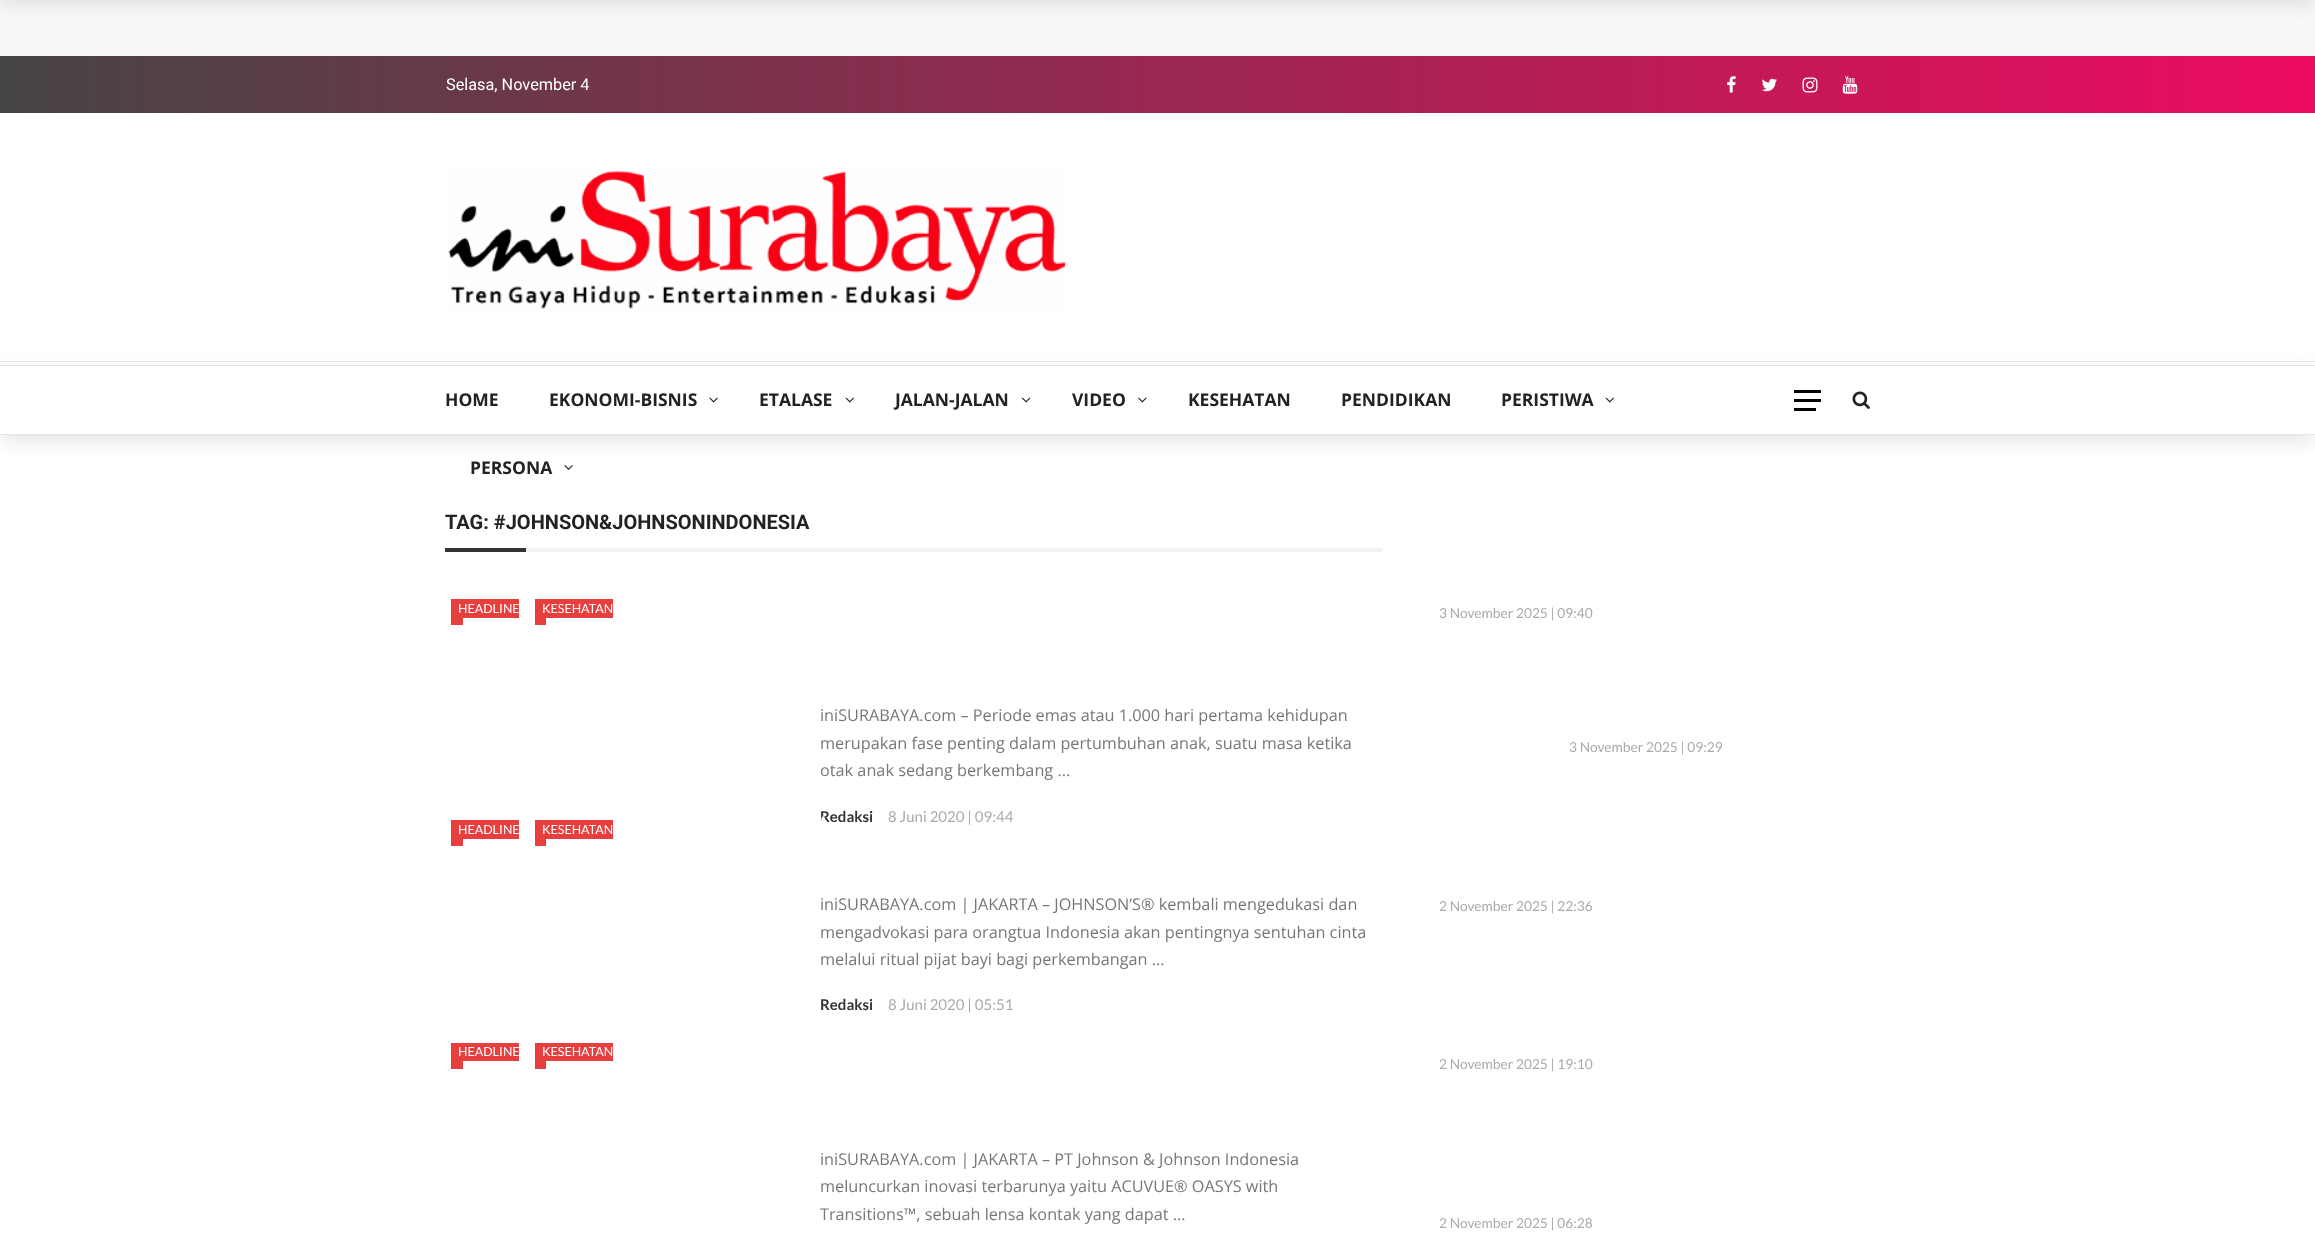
<!DOCTYPE html>
<meta charset="utf-8">
<style>body { margin: 0 } canvas { display: block }</style>
<canvas id="canvas" width="2315" height="1250"></canvas>
<script type="module">
  const canvas = document.getElementById("canvas");
  const ctx = canvas.getContext("2d");
  ctx.miterLimit = 4;
  ctx.fontKerning = "normal";
  async function loadImage(src) {
    const img = new Image();
    img.src = src;
    await img.decode();
    return img;
  }
  let gradient;

  ctx.fillStyle = "#ffffff";
  ctx.fillRect(0, 0, 2315, 1250);
  ctx.fillStyle = "#f8f8f8";
  ctx.fillRect(0, 0, 2315, 56);
  ctx.fillStyle = "rgba(0, 0, 0, 0.1)";
  ctx.filter = "blur(9.5px)";
  ctx.beginPath();
  ctx.rect(0, -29, 2315, 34);
  ctx.fill();
  ctx.filter = "none";
  gradient = ctx.createLinearGradient(0, 84, 2315, 84);
  gradient.addColorStop(0, "#464444");
  gradient.addColorStop(1, "#ec0b5f");
  ctx.fillStyle = gradient;
  ctx.fillRect(0, 56, 2315, 57);
  ctx.font = "16.25px Heebo";
  ctx.fillStyle = "#ffffff";
  ctx.fillText("Selasa, November 4", 446, 90);
  ctx.drawImage(await loadImage("img1.png"), 1727, 76, 9, 17);
  ctx.drawImage(await loadImage("img2.png"), 1762, 78, 15, 14);
  ctx.drawImage(await loadImage("img3.png"), 1802, 77, 16, 16);
  ctx.drawImage(await loadImage("img4.png"), 1842, 76, 16, 18);
  ctx.drawImage(await loadImage("img5.png"), 448, 171, 618, 138);
  ctx.save();
  ctx.beginPath();
  ctx.moveTo(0, 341);
  ctx.lineTo(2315, 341);
  ctx.lineTo(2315, 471);
  ctx.lineTo(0, 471);
  ctx.closePath();
  ctx.moveTo(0, 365);
  ctx.lineTo(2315, 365);
  ctx.lineTo(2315, 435);
  ctx.lineTo(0, 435);
  ctx.closePath();
  ctx.clip("evenodd");
  ctx.fillStyle = "rgba(0, 0, 0, 0.1)";
  ctx.filter = "blur(9.5px)";
  ctx.beginPath();
  ctx.rect(0, 371, 2315, 70);
  ctx.fill();
  ctx.filter = "none";
  ctx.restore();
  ctx.fillStyle = "#e6e6e6";
  ctx.fillRect(0, 365, 2315, 1);
  ctx.fillRect(0, 434, 2315, 1);
  ctx.fillRect(0, 361, 2315, 1);
  ctx.font = "bold 17.5px Open Sans";
  ctx.fillStyle = "#222222";
  ctx.fillText("HOME", 445, 406);
  ctx.fillText("EKONOMI-BISNIS", 549, 406);
  ctx.drawImage(await loadImage("img6.png"), 709, 397, 9, 6);
  ctx.fillText("ETALASE", 759, 406);
  ctx.drawImage(await loadImage("img7.png"), 845, 397, 9, 6);
  ctx.fillText("JALAN-JALAN", 895, 406);
  ctx.drawImage(await loadImage("img8.png"), 1021, 397, 10, 6);
  ctx.fillText("VIDEO", 1072, 406);
  ctx.drawImage(await loadImage("img9.png"), 1138, 397, 9, 6);
  ctx.fillText("KESEHATAN", 1188, 406);
  ctx.fillText("PENDIDIKAN", 1341, 406);
  ctx.fillText("PERISTIWA", 1501, 406);
  ctx.drawImage(await loadImage("img7.png"), 1605, 397, 9, 6);
  ctx.fillText("PERSONA", 470, 474);
  ctx.drawImage(await loadImage("img10.png"), 564, 465, 9, 5);
  ctx.fillStyle = "#000000";
  ctx.fillRect(1794, 390, 27, 3);
  ctx.fillRect(1794, 399, 27, 3);
  ctx.fillRect(1794, 408, 22, 3);
  ctx.drawImage(await loadImage("img11.png"), 1852, 391, 18, 18);
  ctx.fillStyle = "#f2f2f2";
  ctx.fillRect(526, 548, 857, 4);
  ctx.font = "bold 20px Roboto";
  ctx.fillStyle = "#222222";
  ctx.fillText("TAG: #JOHNSON&JOHNSONINDONESIA", 445, 529);
  ctx.fillStyle = "#333333";
  ctx.fillRect(445, 548, 81, 4);
  ctx.fillStyle = "#e93e3e";
  ctx.fillRect(451, 599, 68, 19);
  ctx.font = "12.5px Lato";
  ctx.fillStyle = "#ffffff";
  ctx.fillText("HEADLINE", 458, 613);
  ctx.fillStyle = "#e93e3e";
  ctx.fillRect(451, 618, 12, 7);
  ctx.fillRect(535, 599, 78, 19);
  ctx.fillStyle = "#ffffff";
  ctx.fillText("KESEHATAN", 542, 613);
  ctx.fillStyle = "#e93e3e";
  ctx.fillRect(535, 618, 11, 7);
  ctx.font = "16.25px Open Sans";
  ctx.fillStyle = "#777777";
  ctx.fillText("iniSURABAYA.com – Periode emas atau 1.000 hari pertama kehidupan", 820, 721);
  ctx.fillText("merupakan fase penting dalam pertumbuhan anak, suatu masa ketika", 820, 749);
  ctx.fillText("otak anak sedang berkembang ...", 820, 776);
  ctx.font = "bold 15px Lato";
  ctx.fillStyle = "#333333";
  ctx.fillText("Redaksi", 820, 822);
  ctx.font = "15px Lato";
  ctx.fillStyle = "#aaaaaa";
  ctx.fillText("8 Juni 2020 | 09:44", 888, 822);
  ctx.fillStyle = "#e93e3e";
  ctx.fillRect(451, 820, 68, 19);
  ctx.font = "12.5px Lato";
  ctx.fillStyle = "#ffffff";
  ctx.fillText("HEADLINE", 458, 834);
  ctx.fillStyle = "#e93e3e";
  ctx.fillRect(451, 839, 12, 7);
  ctx.fillRect(535, 820, 78, 19);
  ctx.fillStyle = "#ffffff";
  ctx.fillText("KESEHATAN", 542, 834);
  ctx.fillStyle = "#e93e3e";
  ctx.fillRect(535, 839, 11, 7);
  ctx.font = "500 25px Roboto";
  ctx.fillStyle = "#ffffff";
  ctx.fillText("‘", 820, 835);
  ctx.font = "16.25px Open Sans";
  ctx.fillStyle = "#777777";
  ctx.fillText("iniSURABAYA.com | JAKARTA – JOHNSON’S® kembali mengedukasi dan", 820, 910);
  ctx.fillText("mengadvokasi para orangtua Indonesia akan pentingnya sentuhan cinta", 820, 938);
  ctx.fillText("melalui ritual pijat bayi bagi perkembangan ...", 820, 965);
  ctx.font = "bold 15px Lato";
  ctx.fillStyle = "#333333";
  ctx.fillText("Redaksi", 820, 1010);
  ctx.font = "15px Lato";
  ctx.fillStyle = "#aaaaaa";
  ctx.fillText("8 Juni 2020 | 05:51", 888, 1010);
  ctx.fillStyle = "#e93e3e";
  ctx.fillRect(451, 1043, 68, 18);
  ctx.font = "12.5px Lato";
  ctx.fillStyle = "#ffffff";
  ctx.fillText("HEADLINE", 458, 1056);
  ctx.fillStyle = "#e93e3e";
  ctx.fillRect(451, 1061, 12, 8);
  ctx.fillRect(535, 1043, 78, 18);
  ctx.fillStyle = "#ffffff";
  ctx.fillText("KESEHATAN", 542, 1056);
  ctx.fillStyle = "#e93e3e";
  ctx.fillRect(535, 1061, 11, 8);
  ctx.font = "16.25px Open Sans";
  ctx.fillStyle = "#777777";
  ctx.fillText("iniSURABAYA.com | JAKARTA – PT Johnson & Johnson Indonesia", 820, 1165);
  ctx.fillText("meluncurkan inovasi terbarunya yaitu ACUVUE® OASYS with", 820, 1192);
  ctx.fillText("Transitions™, sebuah lensa kontak yang dapat ...", 820, 1220);
  ctx.font = "13.75px Lato";
  ctx.fillStyle = "#aaaaaa";
  ctx.fillText("3 November 2025 | 09:40", 1439, 618);
  ctx.fillText("3 November 2025 | 09:29", 1569, 752);
  ctx.fillText("2 November 2025 | 22:36", 1439, 911);
  ctx.fillText("2 November 2025 | 19:10", 1439, 1069);
  ctx.fillText("2 November 2025 | 06:28", 1439, 1228);
</script>
